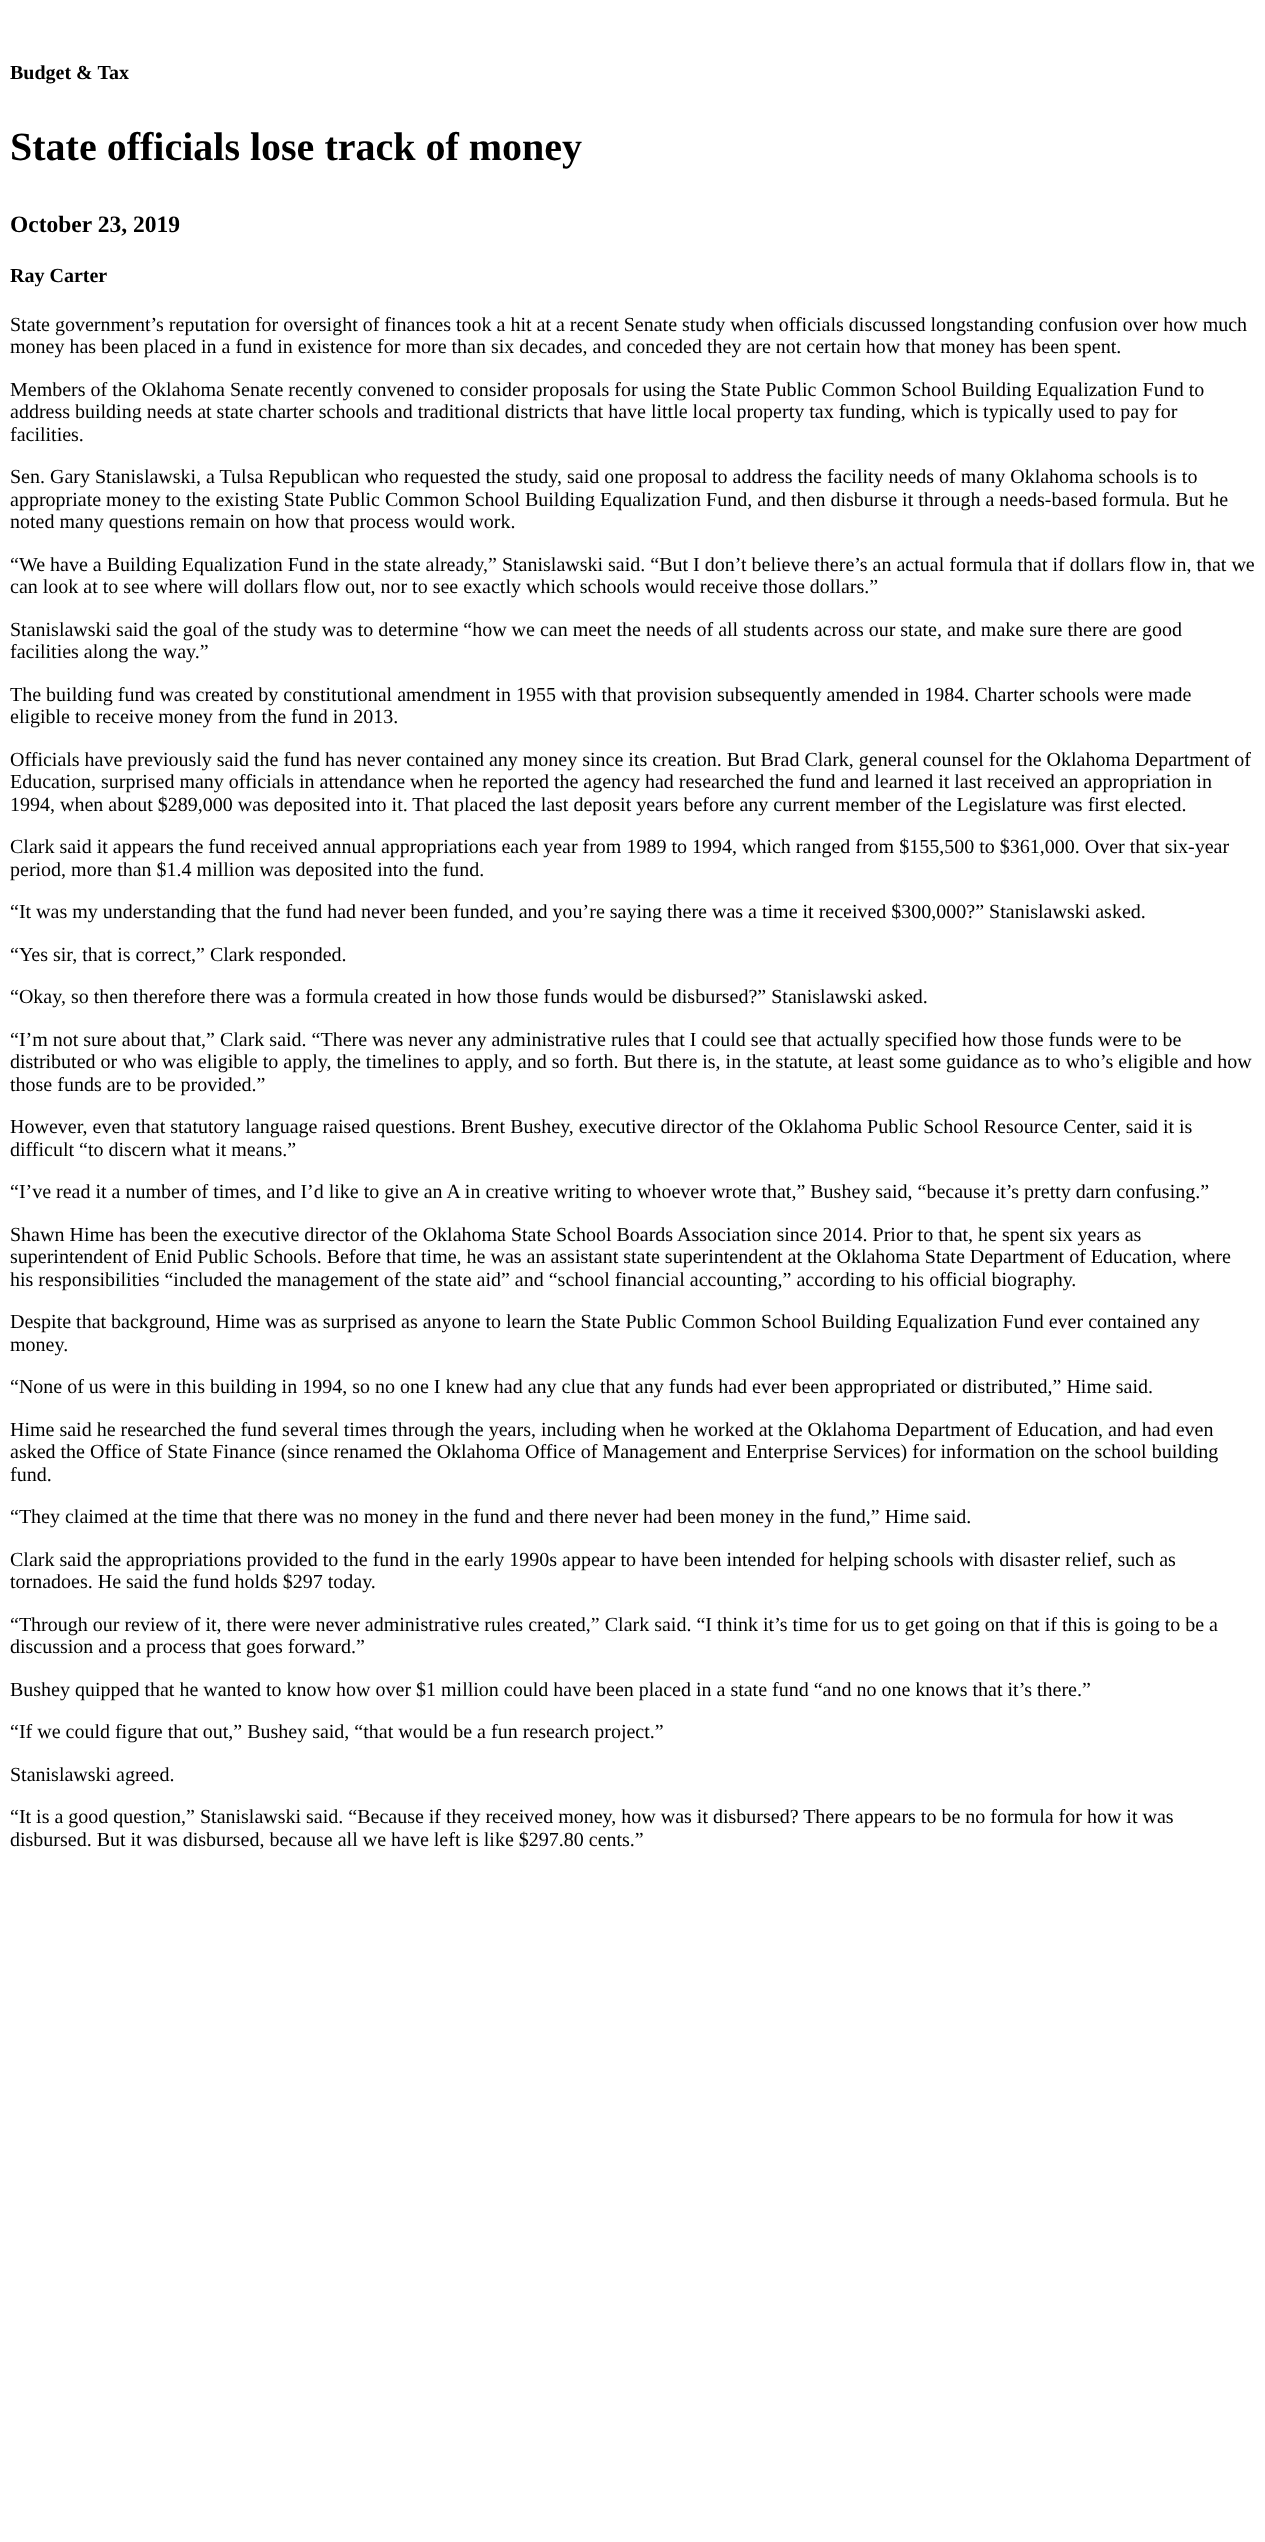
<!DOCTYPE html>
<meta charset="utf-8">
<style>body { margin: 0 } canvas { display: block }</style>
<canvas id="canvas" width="1265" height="2542"></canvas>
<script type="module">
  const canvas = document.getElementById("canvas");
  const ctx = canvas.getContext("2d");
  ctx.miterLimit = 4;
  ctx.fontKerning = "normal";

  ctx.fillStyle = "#ffffff";
  ctx.fillRect(0, 0, 1265, 2542);
  ctx.font = "bold 20px Liberation Serif";
  ctx.fillStyle = "#000000";
  ctx.fillText("Budget & Tax", 10, 79);
  ctx.font = "bold 40px Liberation Serif";
  ctx.fillText("State officials lose track of money", 10, 160);
  ctx.font = "bold 23.5px Liberation Serif";
  ctx.fillText("October 23, 2019", 10, 232);
  ctx.font = "bold 20px Liberation Serif";
  ctx.fillText("Ray Carter", 10, 282);
  ctx.font = "20px Liberation Serif";
  ctx.fillText("State government’s reputation for oversight of finances took a hit at a recent Senate study when officials discussed longstanding confusion over how much", 10, 331);
  ctx.fillText("money has been placed in a fund in existence for more than six decades, and conceded they are not certain how that money has been spent.", 10, 353);
  ctx.fillText("Members of the Oklahoma Senate recently convened to consider proposals for using the State Public Common School Building Equalization Fund to", 10, 396);
  ctx.fillText("address building needs at state charter schools and traditional districts that have little local property tax funding, which is typically used to pay for", 10, 418);
  ctx.fillText("facilities.", 10, 441);
  ctx.fillText("Sen. Gary Stanislawski, a Tulsa Republican who requested the study, said one proposal to address the facility needs of many Oklahoma schools is to", 10, 483);
  ctx.fillText("appropriate money to the existing State Public Common School Building Equalization Fund, and then disburse it through a needs-based formula. But he", 10, 506);
  ctx.fillText("noted many questions remain on how that process would work.", 10, 528);
  ctx.fillText("“We have a Building Equalization Fund in the state already,” Stanislawski said. “But I don’t believe there’s an actual formula that if dollars flow in, that we", 10, 571);
  ctx.fillText("can look at to see where will dollars flow out, nor to see exactly which schools would receive those dollars.”", 10, 593);
  ctx.fillText("Stanislawski said the goal of the study was to determine “how we can meet the needs of all students across our state, and make sure there are good", 10, 636);
  ctx.fillText("facilities along the way.”", 10, 658);
  ctx.fillText("The building fund was created by constitutional amendment in 1955 with that provision subsequently amended in 1984. Charter schools were made", 10, 701);
  ctx.fillText("eligible to receive money from the fund in 2013.", 10, 723);
  ctx.fillText("Officials have previously said the fund has never contained any money since its creation. But Brad Clark, general counsel for the Oklahoma Department of", 10, 766);
  ctx.fillText("Education, surprised many officials in attendance when he reported the agency had researched the fund and learned it last received an appropriation in", 10, 788);
  ctx.fillText("1994, when about $289,000 was deposited into it. That placed the last deposit years before any current member of the Legislature was first elected.", 10, 811);
  ctx.fillText("Clark said it appears the fund received annual appropriations each year from 1989 to 1994, which ranged from $155,500 to $361,000. Over that six-year", 10, 853);
  ctx.fillText("period, more than $1.4 million was deposited into the fund.", 10, 876);
  ctx.fillText("“It was my understanding that the fund had never been funded, and you’re saying there was a time it received $300,000?” Stanislawski asked.", 10, 918);
  ctx.fillText("“Yes sir, that is correct,” Clark responded.", 10, 961);
  ctx.fillText("“Okay, so then therefore there was a formula created in how those funds would be disbursed?” Stanislawski asked.", 10, 1003);
  ctx.fillText("“I’m not sure about that,” Clark said. “There was never any administrative rules that I could see that actually specified how those funds were to be", 10, 1046);
  ctx.fillText("distributed or who was eligible to apply, the timelines to apply, and so forth. But there is, in the statute, at least some guidance as to who’s eligible and how", 10, 1068);
  ctx.fillText("those funds are to be provided.”", 10, 1091);
  ctx.fillText("However, even that statutory language raised questions. Brent Bushey, executive director of the Oklahoma Public School Resource Center, said it is", 10, 1133);
  ctx.fillText("difficult “to discern what it means.”", 10, 1156);
  ctx.fillText("“I’ve read it a number of times, and I’d like to give an A in creative writing to whoever wrote that,” Bushey said, “because it’s pretty darn confusing.”", 10, 1198);
  ctx.fillText("Shawn Hime has been the executive director of the Oklahoma State School Boards Association since 2014. Prior to that, he spent six years as", 10, 1241);
  ctx.fillText("superintendent of Enid Public Schools. Before that time, he was an assistant state superintendent at the Oklahoma State Department of Education, where", 10, 1263);
  ctx.fillText("his responsibilities “included the management of the state aid” and “school financial accounting,” according to his official biography.", 10, 1286);
  ctx.fillText("Despite that background, Hime was as surprised as anyone to learn the State Public Common School Building Equalization Fund ever contained any", 10, 1328);
  ctx.fillText("money.", 10, 1351);
  ctx.fillText("“None of us were in this building in 1994, so no one I knew had any clue that any funds had ever been appropriated or distributed,” Hime said.", 10, 1393);
  ctx.fillText("Hime said he researched the fund several times through the years, including when he worked at the Oklahoma Department of Education, and had even", 10, 1436);
  ctx.fillText("asked the Office of State Finance (since renamed the Oklahoma Office of Management and Enterprise Services) for information on the school building", 10, 1458);
  ctx.fillText("fund.", 10, 1481);
  ctx.fillText("“They claimed at the time that there was no money in the fund and there never had been money in the fund,” Hime said.", 10, 1523);
  ctx.fillText("Clark said the appropriations provided to the fund in the early 1990s appear to have been intended for helping schools with disaster relief, such as", 10, 1566);
  ctx.fillText("tornadoes. He said the fund holds $297 today.", 10, 1588);
  ctx.fillText("“Through our review of it, there were never administrative rules created,” Clark said. “I think it’s time for us to get going on that if this is going to be a", 10, 1631);
  ctx.fillText("discussion and a process that goes forward.”", 10, 1653);
  ctx.fillText("Bushey quipped that he wanted to know how over $1 million could have been placed in a state fund “and no one knows that it’s there.”", 10, 1696);
  ctx.fillText("“If we could figure that out,” Bushey said, “that would be a fun research project.”", 10, 1738);
  ctx.fillText("Stanislawski agreed.", 10, 1781);
  ctx.fillText("“It is a good question,” Stanislawski said. “Because if they received money, how was it disbursed? There appears to be no formula for how it was", 10, 1823);
  ctx.fillText("disbursed. But it was disbursed, because all we have left is like $297.80 cents.”", 10, 1846);
</script>
